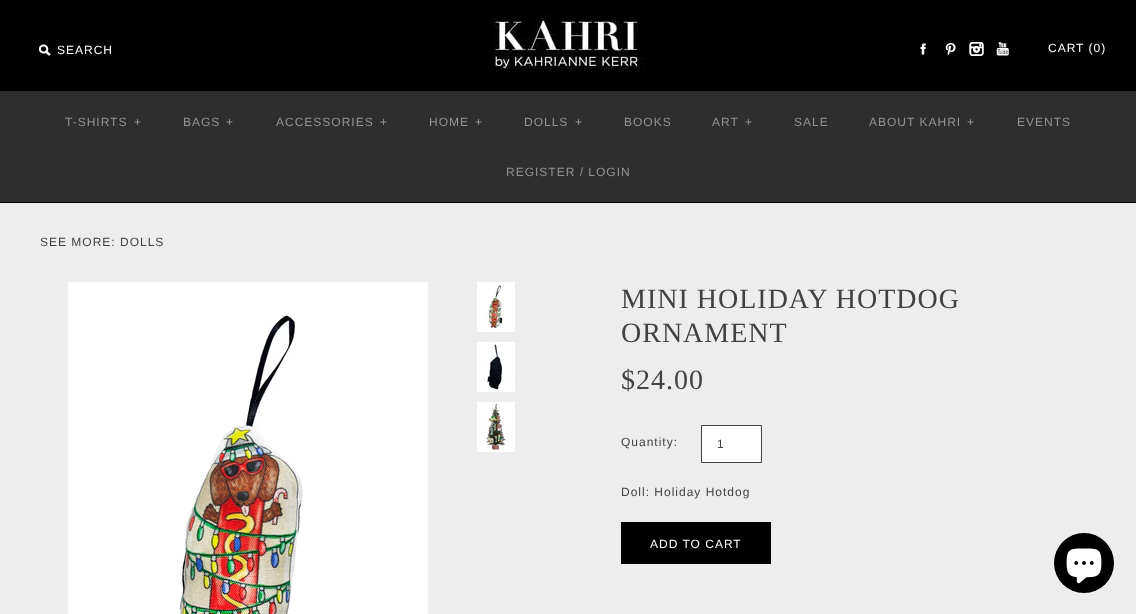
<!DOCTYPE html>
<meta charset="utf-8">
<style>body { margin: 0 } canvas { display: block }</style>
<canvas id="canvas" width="1136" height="614"></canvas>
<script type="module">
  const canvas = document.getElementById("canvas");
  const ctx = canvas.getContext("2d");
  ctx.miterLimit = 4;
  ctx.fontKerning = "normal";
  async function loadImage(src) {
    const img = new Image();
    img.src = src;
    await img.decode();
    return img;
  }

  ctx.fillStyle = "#000000";
  ctx.fillRect(0, 0, 1136, 614);
  ctx.drawImage(await loadImage("img1.png"), 493, 13, 152, 56);
  ctx.drawImage(await loadImage("img2.png"), 39, 44, 12, 12);
  ctx.letterSpacing = "1px";
  ctx.font = "12px Liberation Sans";
  ctx.fillStyle = "#ffffff";
  ctx.fillText("SEARCH", 57, 54);
  ctx.drawImage(await loadImage("img3.png"), 920, 43, 6, 12);
  ctx.drawImage(await loadImage("img4.png"), 945, 43, 11, 13);
  ctx.drawImage(await loadImage("img5.png"), 969, 42, 15, 14);
  ctx.drawImage(await loadImage("img6.png"), 996, 42, 13, 14);
  ctx.fillText("CART (0)", 1048, 52);
  ctx.fillStyle = "#2e2e2e";
  ctx.fillRect(0, 91, 1136, 111);
  ctx.fillStyle = "#949494";
  ctx.fillText("T-SHIRTS", 65, 126);
  ctx.fillText("+", 134, 126);
  ctx.fillText("BAGS", 183, 126);
  ctx.fillText("+", 226, 126);
  ctx.fillText("ACCESSORIES", 276, 126);
  ctx.fillText("+", 380, 126);
  ctx.fillText("HOME", 429, 126);
  ctx.fillText("+", 475, 126);
  ctx.fillText("DOLLS", 524, 126);
  ctx.fillText("+", 575, 126);
  ctx.fillText("BOOKS", 624, 126);
  ctx.fillText("ART", 712, 126);
  ctx.fillText("+", 745, 126);
  ctx.fillText("SALE", 794, 126);
  ctx.fillText("ABOUT KAHRI", 869, 126);
  ctx.fillText("+", 967, 126);
  ctx.fillText("EVENTS", 1017, 126);
  ctx.fillText("REGISTER / LOGIN", 506, 176);
  ctx.fillStyle = "#ededed";
  ctx.fillRect(0, 203, 1136, 411);
  ctx.fillStyle = "#424242";
  ctx.fillText("SEE MORE: DOLLS", 40, 246);
  ctx.drawImage(await loadImage("img7.png"), 68, 282, 360, 332);
  ctx.drawImage(await loadImage("img8.png"), 477, 282, 38, 50);
  ctx.drawImage(await loadImage("img9.png"), 477, 342, 38, 50);
  ctx.drawImage(await loadImage("img10.png"), 477, 402, 38, 50);
  ctx.font = "28px Liberation Serif";
  ctx.fillText("MINI HOLIDAY HOTDOG", 621, 308);
  ctx.fillText("ORNAMENT", 621, 342);
  ctx.fillText("$24.00", 621, 389);
  ctx.font = "12px Liberation Sans";
  ctx.fillText("Quantity:", 621, 446);
  ctx.fillStyle = "#ffffff";
  ctx.beginPath();
  ctx.rect(701.5, 425.5, 60, 37);
  ctx.fill();
  ctx.strokeStyle = "#424242";
  ctx.stroke();
  ctx.fillStyle = "#424242";
  ctx.fillText("1", 717, 448);
  ctx.fillText("Doll: Holiday Hotdog", 621, 496);
  ctx.fillStyle = "#000000";
  ctx.fillRect(621, 522, 150, 42);
  ctx.fillStyle = "#ffffff";
  ctx.fillText("ADD TO CART", 650, 548);
  ctx.fillStyle = "#000000";
  ctx.beginPath();
  ctx.arc(1084, 563, 30, 0, Math.PI * 2);
  ctx.fill();
  ctx.drawImage(await loadImage("img11.png"), 1066, 548, 36, 36);
</script>
